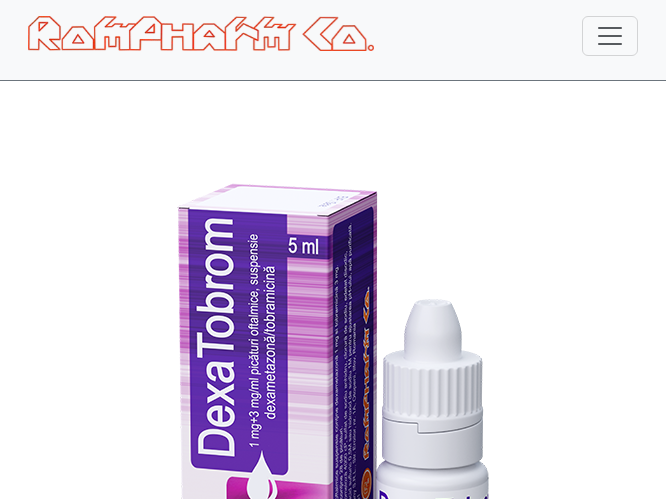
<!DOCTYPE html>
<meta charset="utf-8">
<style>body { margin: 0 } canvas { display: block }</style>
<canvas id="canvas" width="666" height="499"></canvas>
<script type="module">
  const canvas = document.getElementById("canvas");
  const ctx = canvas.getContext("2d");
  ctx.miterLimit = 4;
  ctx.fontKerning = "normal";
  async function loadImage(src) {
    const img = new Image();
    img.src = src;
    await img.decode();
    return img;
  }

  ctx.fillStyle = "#ffffff";
  ctx.fillRect(0, 0, 666, 499);
  ctx.fillStyle = "#f8f9fa";
  ctx.fillRect(0, 0, 666, 80);
  ctx.fillStyle = "#6c757d";
  ctx.fillRect(0, 80, 666, 1);
  ctx.drawImage(await loadImage("img1.png"), 28, 16, 346, 35);
  ctx.beginPath();
  ctx.roundRect(582.5, 16.5, 55, 39, 5.5);
  ctx.strokeStyle = "#d3d4d5";
  ctx.stroke();
  ctx.drawImage(await loadImage("img2.png"), 598, 27, 24, 18);
  ctx.drawImage(await loadImage("img3.png"), 177, 183, 312, 316);
</script>
